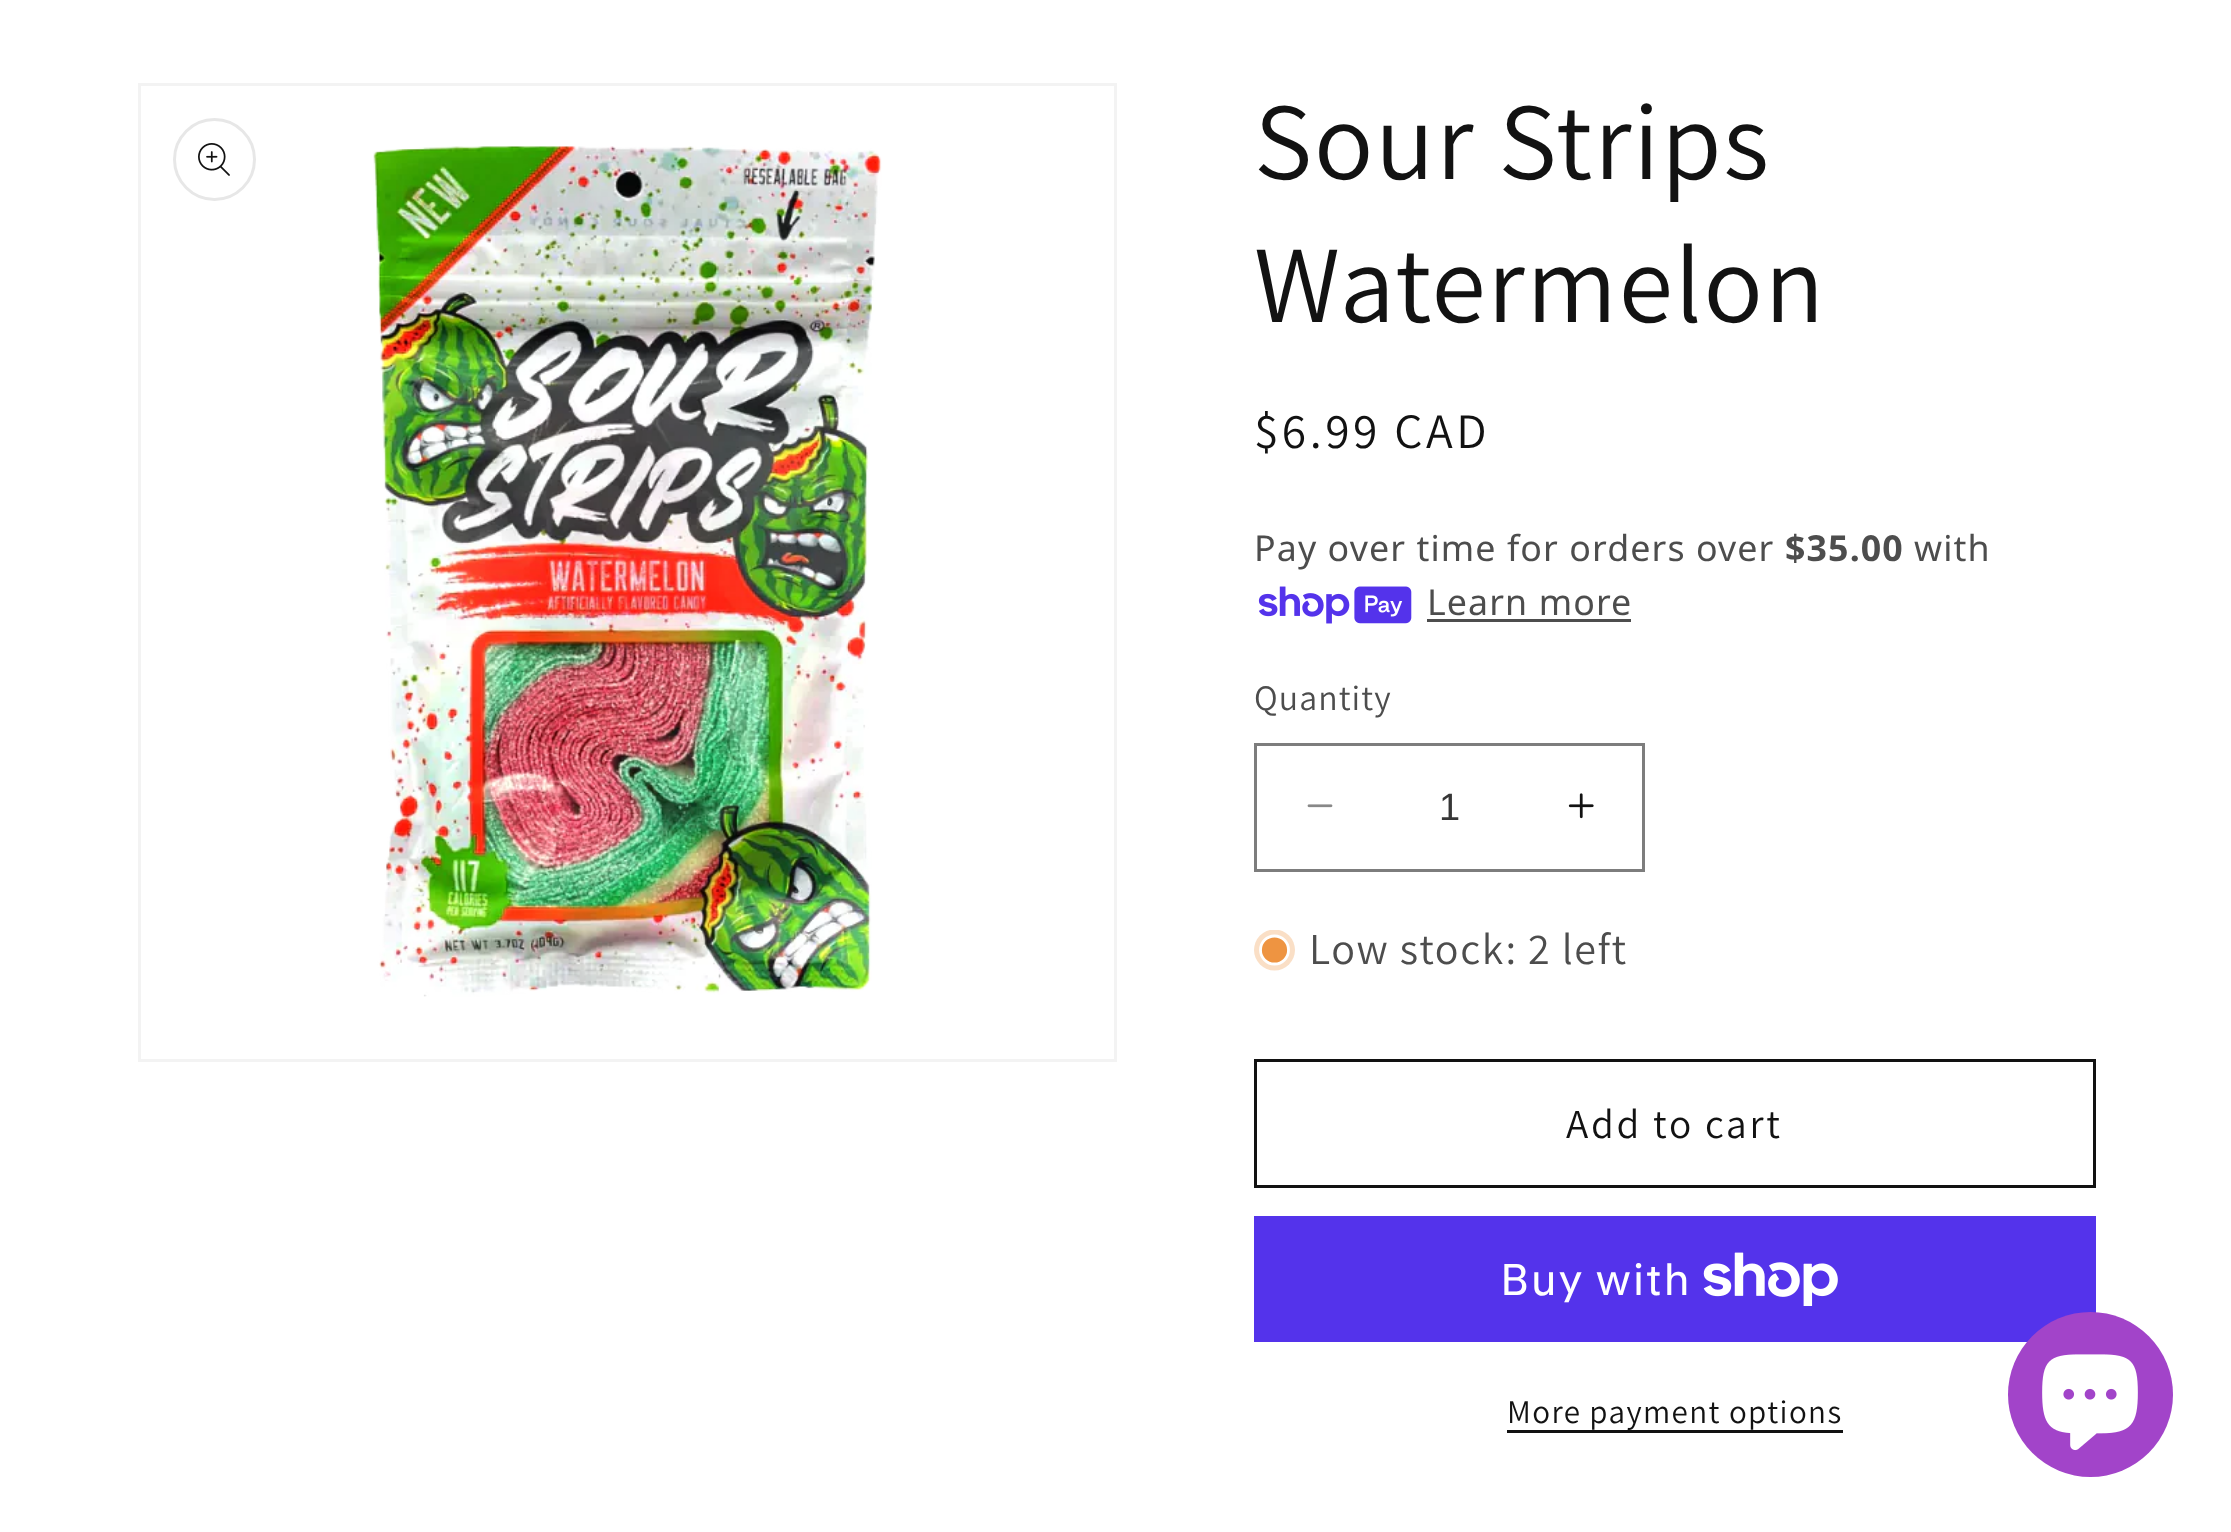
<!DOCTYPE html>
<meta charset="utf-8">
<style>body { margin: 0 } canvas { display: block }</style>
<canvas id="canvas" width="2231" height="1532"></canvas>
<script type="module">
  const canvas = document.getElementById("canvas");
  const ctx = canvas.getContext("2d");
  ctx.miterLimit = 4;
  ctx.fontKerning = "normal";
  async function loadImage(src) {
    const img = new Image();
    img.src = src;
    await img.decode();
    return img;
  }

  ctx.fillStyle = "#ffffff";
  ctx.fillRect(0, 0, 2231, 1532);
  ctx.strokeStyle = "#f3f3f3";
  ctx.lineWidth = 3;
  ctx.strokeRect(139.5, 84.5, 976, 976);
  ctx.beginPath();
  ctx.arc(214.5, 159.5, 40, 0, Math.PI * 2);
  ctx.strokeStyle = "#e7e7e7";
  ctx.stroke();
  ctx.drawImage(await loadImage("img1.png"), 198, 143, 32, 33);
  ctx.drawImage(await loadImage("img2.png"), 373, 145, 509, 852);
  ctx.letterSpacing = "1.6px";
  ctx.font = "110px Assistant";
  ctx.fillStyle = "#121212";
  ctx.fillText("Sour Strips", 1254, 179);
  ctx.fillText("Watermelon", 1254, 322);
  ctx.letterSpacing = "3.5px";
  ctx.font = "49.5px Assistant";
  ctx.fillText("$6.99 CAD", 1254, 448);
  ctx.letterSpacing = "1.1px";
  ctx.font = "35.75px Noto Sans";
  ctx.fillStyle = "#4d4d4d";
  ctx.fillText("Pay over time for orders over", 1254, 561);
  ctx.font = "bold 35.75px Noto Sans";
  ctx.fillText("$35.00", 1785, 561);
  ctx.font = "35.75px Noto Sans";
  ctx.fillText("with", 1914, 561);
  ctx.drawImage(await loadImage("img3.png"), 1258, 586, 154, 38);
  ctx.fillText("Learn more", 1427, 615);
  ctx.fillRect(1427, 619, 204, 3);
  ctx.font = "35.75px Assistant";
  ctx.fillText("Quantity", 1254, 710);
  ctx.drawImage(await loadImage("img4.png"), 1307, 804, 26, 4);
  ctx.drawImage(await loadImage("img5.png"), 1568, 793, 26, 26);
  ctx.strokeStyle = "#7d7d7d";
  ctx.strokeRect(1255.5, 744.5, 388, 126);
  ctx.letterSpacing = "0px";
  ctx.font = "38px Liberation Sans";
  ctx.fillStyle = "#363636";
  ctx.fillText("1", 1439, 820);
  ctx.save();
  ctx.beginPath();
  ctx.rect(1254, 930, 41, 41);
  ctx.clip();
  ctx.fillStyle = "#fadfc6";
  ctx.beginPath();
  ctx.arc(1274.5, 950, 20.5, 0, Math.PI * 2);
  ctx.fill();
  ctx.restore();
  ctx.fillStyle = "#ee9441";
  ctx.beginPath();
  ctx.arc(1274.5, 950, 14, 0, Math.PI * 2);
  ctx.fill();
  ctx.strokeStyle = "#ffffff";
  ctx.lineWidth = 2.8;
  ctx.stroke();
  ctx.letterSpacing = "1.6px";
  ctx.font = "44px Assistant";
  ctx.fillStyle = "#4d4d4d";
  ctx.fillText("Low stock: 2 left", 1309, 964);
  ctx.strokeStyle = "#121212";
  ctx.lineWidth = 3;
  ctx.strokeRect(1255.5, 1060.5, 839, 126);
  ctx.letterSpacing = "2.75px";
  ctx.font = "41.25px Assistant";
  ctx.fillStyle = "#121212";
  ctx.fillText("Add to cart", 1566, 1138);
  ctx.fillStyle = "#5433eb";
  ctx.fillRect(1254, 1216, 842, 126);
  ctx.letterSpacing = "1.6px";
  ctx.font = "44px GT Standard";
  ctx.fillStyle = "#ffffff";
  ctx.fillText("Buy with", 1500, 1295);
  ctx.drawImage(await loadImage("img6.png"), 1703, 1252, 135, 54);
  ctx.letterSpacing = "1.4px";
  ctx.font = "33px Assistant";
  ctx.fillStyle = "#121212";
  ctx.fillText("More payment options", 1507, 1423);
  ctx.fillRect(1507, 1430, 336, 3);
  ctx.fillStyle = "#a244c9";
  ctx.beginPath();
  ctx.arc(2090.5, 1394.5, 82.5, 0, Math.PI * 2);
  ctx.fill();
  ctx.drawImage(await loadImage("img7.png"), 2042, 1354, 96, 97);
</script>
